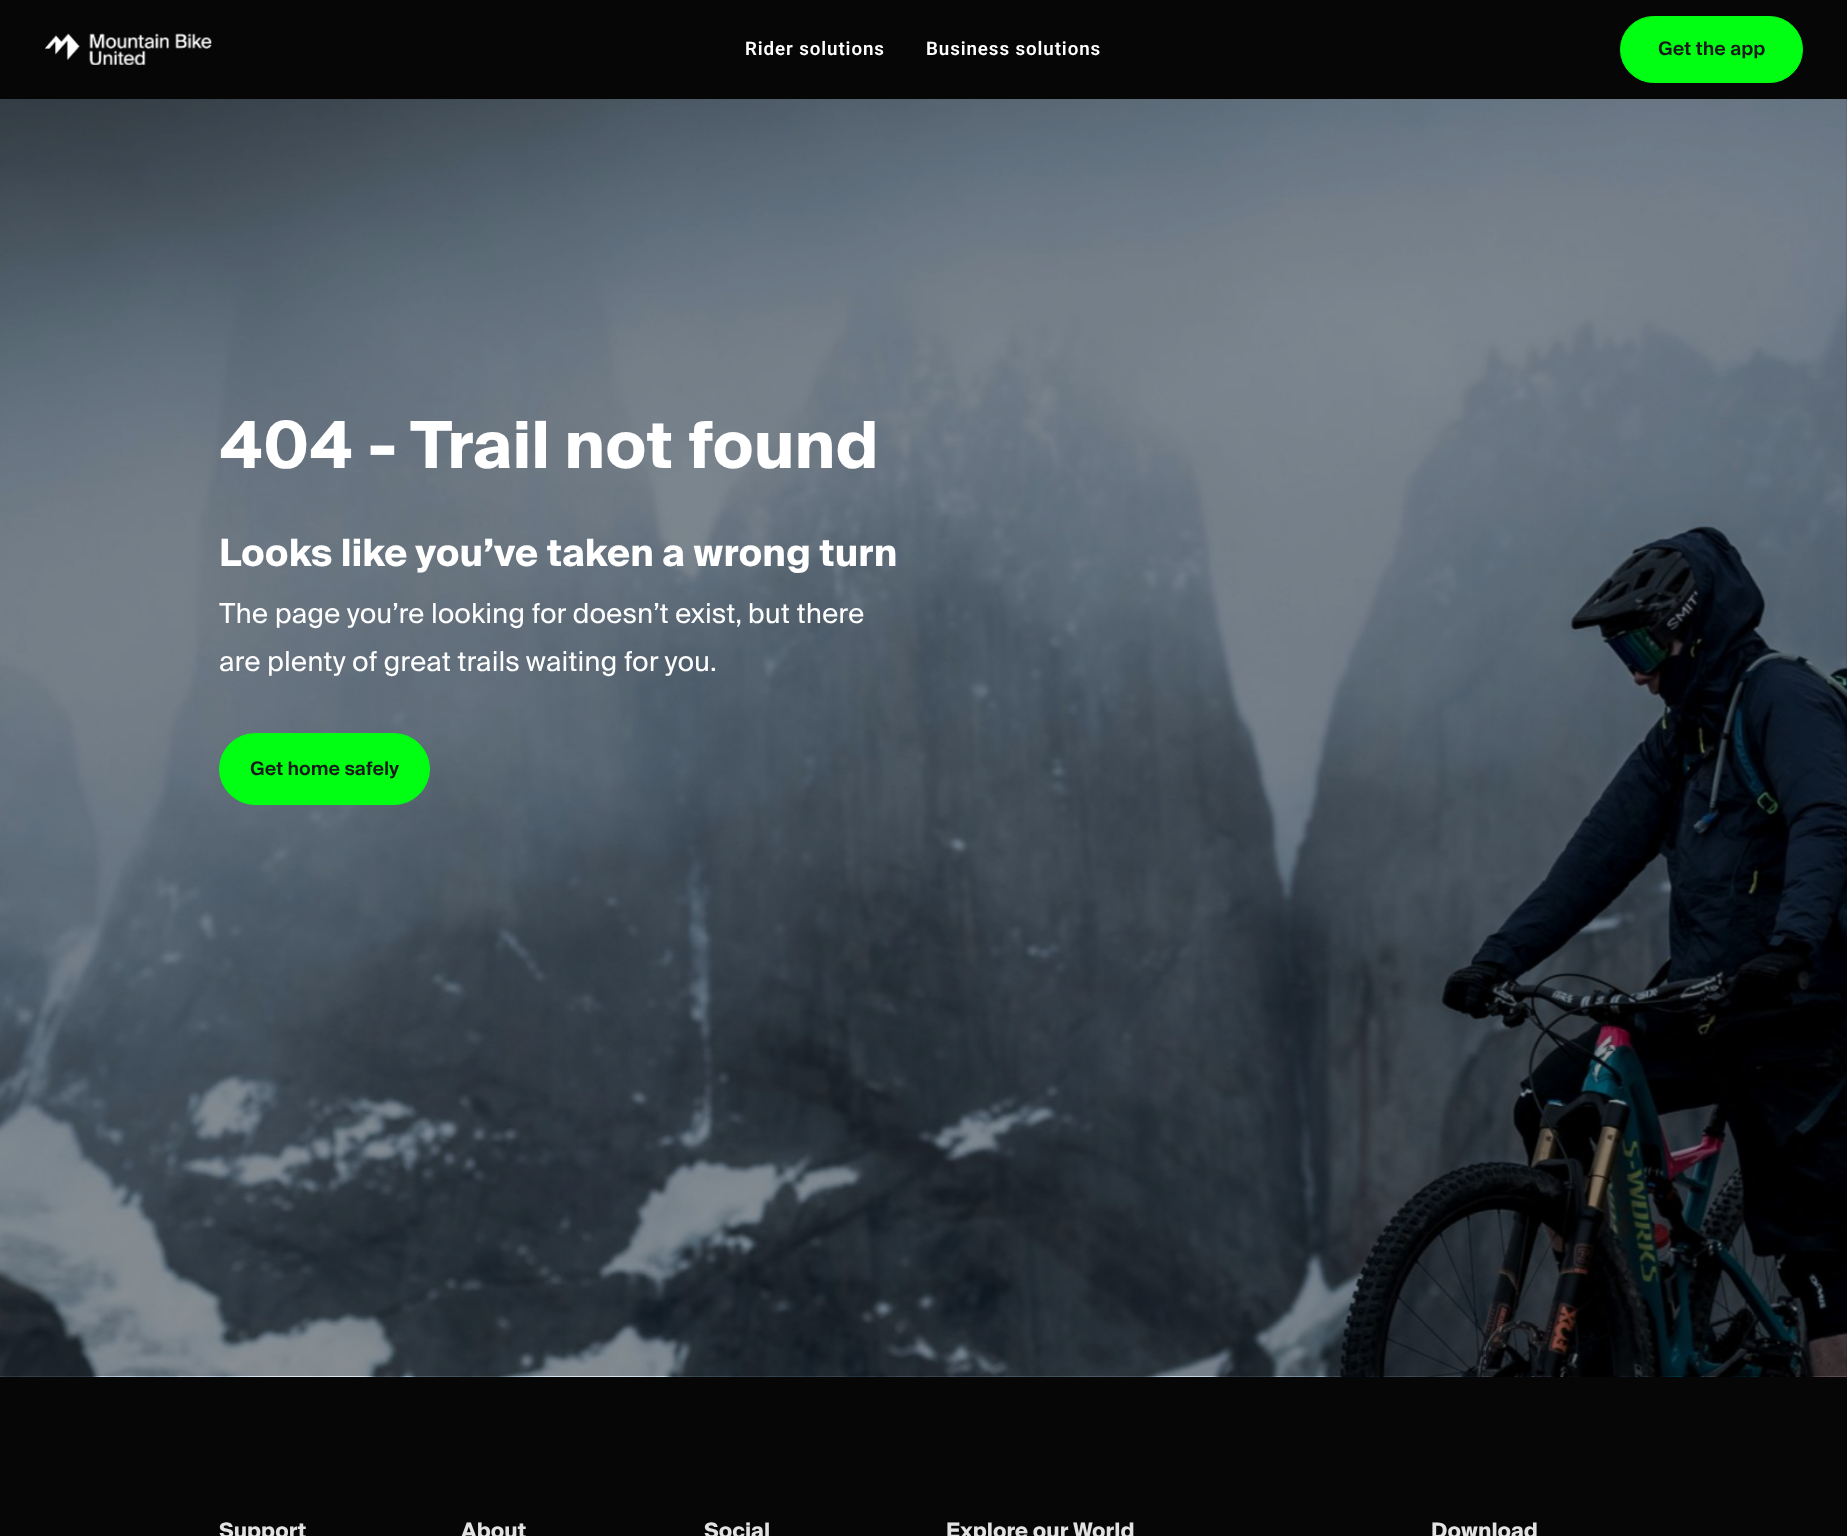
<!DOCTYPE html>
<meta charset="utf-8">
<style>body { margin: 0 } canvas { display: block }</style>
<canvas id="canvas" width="1847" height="1536"></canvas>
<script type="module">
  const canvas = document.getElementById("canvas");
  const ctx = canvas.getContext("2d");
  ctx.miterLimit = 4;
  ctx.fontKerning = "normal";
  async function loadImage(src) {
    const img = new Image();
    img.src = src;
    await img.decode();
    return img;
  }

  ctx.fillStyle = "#060606";
  ctx.fillRect(0, 0, 1847, 1536);
  ctx.drawImage(await loadImage("img1.png"), 45, 33, 167, 32);
  ctx.letterSpacing = "0.9px";
  ctx.font = "600 18.75px Roboto";
  ctx.fillStyle = "#ffffff";
  ctx.fillText("Rider solutions", 745, 55);
  ctx.fillText("Business solutions", 926, 55);
  ctx.fillStyle = "#00ff12";
  ctx.beginPath();
  ctx.roundRect(1620.5, 16.5, 182, 66, 33);
  ctx.fill();
  ctx.strokeStyle = "#00ff12";
  ctx.stroke();
  ctx.letterSpacing = "0px";
  ctx.font = "600 18.75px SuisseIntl";
  ctx.fillStyle = "#1a1a1a";
  ctx.fillText("Get the app", 1658, 55);
  ctx.drawImage(await loadImage("img2.png"), 0, 99, 1847, 1278);
  ctx.font = "bold 65px SuisseIntl";
  ctx.fillStyle = "#ffffff";
  ctx.fillText("404 - Trail not found", 219, 468);
  ctx.font = "bold 37.5px SuisseIntl";
  ctx.fillText("Looks like you’ve taken a wrong turn", 219, 566);
  ctx.font = "27.5px SuisseIntl";
  ctx.fillText("The page you’re looking for doesn’t exist, but there", 219, 623);
  ctx.fillText("are plenty of great trails waiting for you.", 219, 671);
  ctx.fillStyle = "#00ff12";
  ctx.beginPath();
  ctx.roundRect(219.5, 733.5, 210, 71, 35.5);
  ctx.fill();
  ctx.stroke();
  ctx.font = "600 18.75px SuisseIntl";
  ctx.fillStyle = "#1a1a1a";
  ctx.fillText("Get home safely", 250, 775);
  ctx.font = "bold 21.25px SuisseIntl";
  ctx.fillStyle = "#e2e2e2";
  ctx.fillText("Support", 219, 1538);
  ctx.fillText("About", 461, 1538);
  ctx.fillText("Social", 704, 1538);
  ctx.fillText("Explore our World", 946, 1538);
  ctx.fillText("Download", 1431, 1538);
</script>
